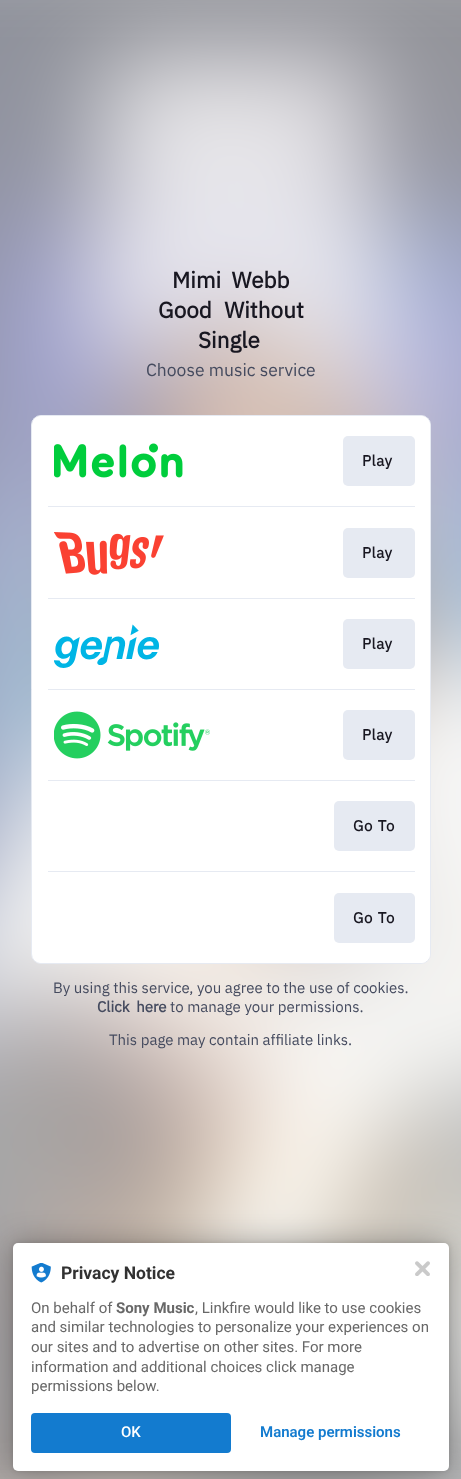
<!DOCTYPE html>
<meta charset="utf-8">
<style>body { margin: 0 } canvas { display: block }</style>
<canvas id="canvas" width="461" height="1479"></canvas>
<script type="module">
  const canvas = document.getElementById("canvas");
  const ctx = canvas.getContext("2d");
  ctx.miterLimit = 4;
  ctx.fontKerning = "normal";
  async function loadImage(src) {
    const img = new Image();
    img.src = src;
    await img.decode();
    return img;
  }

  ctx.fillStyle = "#ffffff";
  ctx.fillRect(0, 0, 461, 1479);
  ctx.drawImage(await loadImage("img1.png"), 0, 0, 461, 1479);
  ctx.wordSpacing = "5px";
  ctx.font = "bold 22.5px IBM Plex Sans";
  ctx.fillStyle = "#181721";
  ctx.fillText("Mimi Webb", 172, 288);
  ctx.wordSpacing = "7px";
  ctx.fillText("Good Without", 158, 318);
  ctx.wordSpacing = "0px";
  ctx.fillText("Single", 198, 348);
  ctx.font = "17.5px IBM Plex Sans";
  ctx.fillStyle = "#454b5f";
  ctx.fillText("Choose music service", 146, 376);
  ctx.fillStyle = "#ffffff";
  ctx.beginPath();
  ctx.roundRect(31.5, 415.5, 399, 548, 9.5);
  ctx.fill();
  ctx.strokeStyle = "#e6eaf2";
  ctx.stroke();
  ctx.beginPath();
  ctx.roundRect(33, 416, 397, 547, 9);
  ctx.fill();
  ctx.drawImage(await loadImage("img2.png"), 54, 443, 129, 35);
  ctx.fillStyle = "#e6eaf2";
  ctx.beginPath();
  ctx.roundRect(343, 436, 72, 50, 5);
  ctx.fill();
  ctx.letterSpacing = "0.5px";
  ctx.font = "bold 15px IBM Plex Sans";
  ctx.fillStyle = "#181721";
  ctx.fillText("Play", 362, 466);
  ctx.fillStyle = "#e6eaf2";
  ctx.fillRect(48, 506, 367, 1);
  ctx.drawImage(await loadImage("img3.png"), 54, 532, 110, 43);
  ctx.beginPath();
  ctx.roundRect(343, 528, 72, 50, 5);
  ctx.fill();
  ctx.fillStyle = "#181721";
  ctx.fillText("Play", 362, 558);
  ctx.fillStyle = "#e6eaf2";
  ctx.fillRect(48, 598, 367, 1);
  ctx.drawImage(await loadImage("img4.png"), 54, 624, 105, 44);
  ctx.beginPath();
  ctx.roundRect(343, 619, 72, 50, 5);
  ctx.fill();
  ctx.fillStyle = "#181721";
  ctx.fillText("Play", 362, 649);
  ctx.fillStyle = "#e6eaf2";
  ctx.fillRect(48, 689, 367, 1);
  ctx.drawImage(await loadImage("img5.png"), 54, 711, 156, 48);
  ctx.beginPath();
  ctx.roundRect(343, 710, 72, 50, 5);
  ctx.fill();
  ctx.fillStyle = "#181721";
  ctx.fillText("Play", 362, 740);
  ctx.fillStyle = "#e6eaf2";
  ctx.fillRect(48, 780, 367, 1);
  ctx.beginPath();
  ctx.roundRect(334, 801, 81, 50, 5);
  ctx.fill();
  ctx.wordSpacing = "1px";
  ctx.fillStyle = "#181721";
  ctx.fillText("Go To", 353, 831);
  ctx.fillStyle = "#e6eaf2";
  ctx.fillRect(48, 871, 367, 1);
  ctx.beginPath();
  ctx.roundRect(334, 893, 81, 50, 5);
  ctx.fill();
  ctx.fillStyle = "#181721";
  ctx.fillText("Go To", 353, 923);
  ctx.letterSpacing = "0px";
  ctx.wordSpacing = "0px";
  ctx.font = "15px IBM Plex Sans";
  ctx.fillStyle = "#454b5f";
  ctx.fillText("By using this service, you agree to the use of cookies.", 53, 993);
  ctx.wordSpacing = "3px";
  ctx.font = "bold 15px IBM Plex Sans";
  ctx.fillText("Click here", 97, 1012);
  ctx.wordSpacing = "0px";
  ctx.font = "15px IBM Plex Sans";
  ctx.fillText("to manage your permissions.", 170, 1012);
  ctx.fillText("This page may contain affiliate links.", 109, 1045);
  ctx.fillStyle = "rgba(0, 0, 0, 0.12)";
  ctx.filter = "blur(2.5px)";
  ctx.beginPath();
  ctx.roundRect(13, 1243, 436, 228, 5);
  ctx.fill();
  ctx.filter = "none";
  ctx.fillStyle = "rgba(0, 0, 0, 0.3)";
  ctx.filter = "blur(15px)";
  ctx.beginPath();
  ctx.roundRect(13, 1243, 436, 228, 5);
  ctx.fill();
  ctx.filter = "none";
  ctx.fillStyle = "#ffffff";
  ctx.beginPath();
  ctx.roundRect(13, 1243, 436, 228, 5);
  ctx.fill();
  ctx.drawImage(await loadImage("img6.png"), 415, 1261, 15, 15);
  ctx.drawImage(await loadImage("img7.png"), 31, 1263, 20, 20);
  ctx.font = "bold 17.5px Roboto";
  ctx.fillStyle = "#323232";
  ctx.fillText("Privacy Notice", 61, 1279);
  ctx.font = "15px Roboto";
  ctx.fillStyle = "#686868";
  ctx.fillText("On behalf of", 31, 1313);
  ctx.font = "bold 15px Roboto";
  ctx.fillText("Sony Music", 116, 1313);
  ctx.font = "15px Roboto";
  ctx.fillText(", Linkfire would like to use cookies", 195, 1313);
  ctx.fillText("and similar technologies to personalize your experiences on", 31, 1332);
  ctx.fillText("our sites and to advertise on other sites. For more", 31, 1352);
  ctx.fillText("information and additional choices click manage", 31, 1372);
  ctx.fillText("permissions below.", 31, 1391);
  ctx.fillStyle = "#137bcf";
  ctx.beginPath();
  ctx.roundRect(31, 1413, 200, 40, 4);
  ctx.fill();
  ctx.font = "500 15px Roboto";
  ctx.fillStyle = "#ffffff";
  ctx.fillText("OK", 121, 1437);
  ctx.font = "600 15px Roboto";
  ctx.fillStyle = "#137bcf";
  ctx.fillText("Manage permissions", 260, 1437);
</script>
